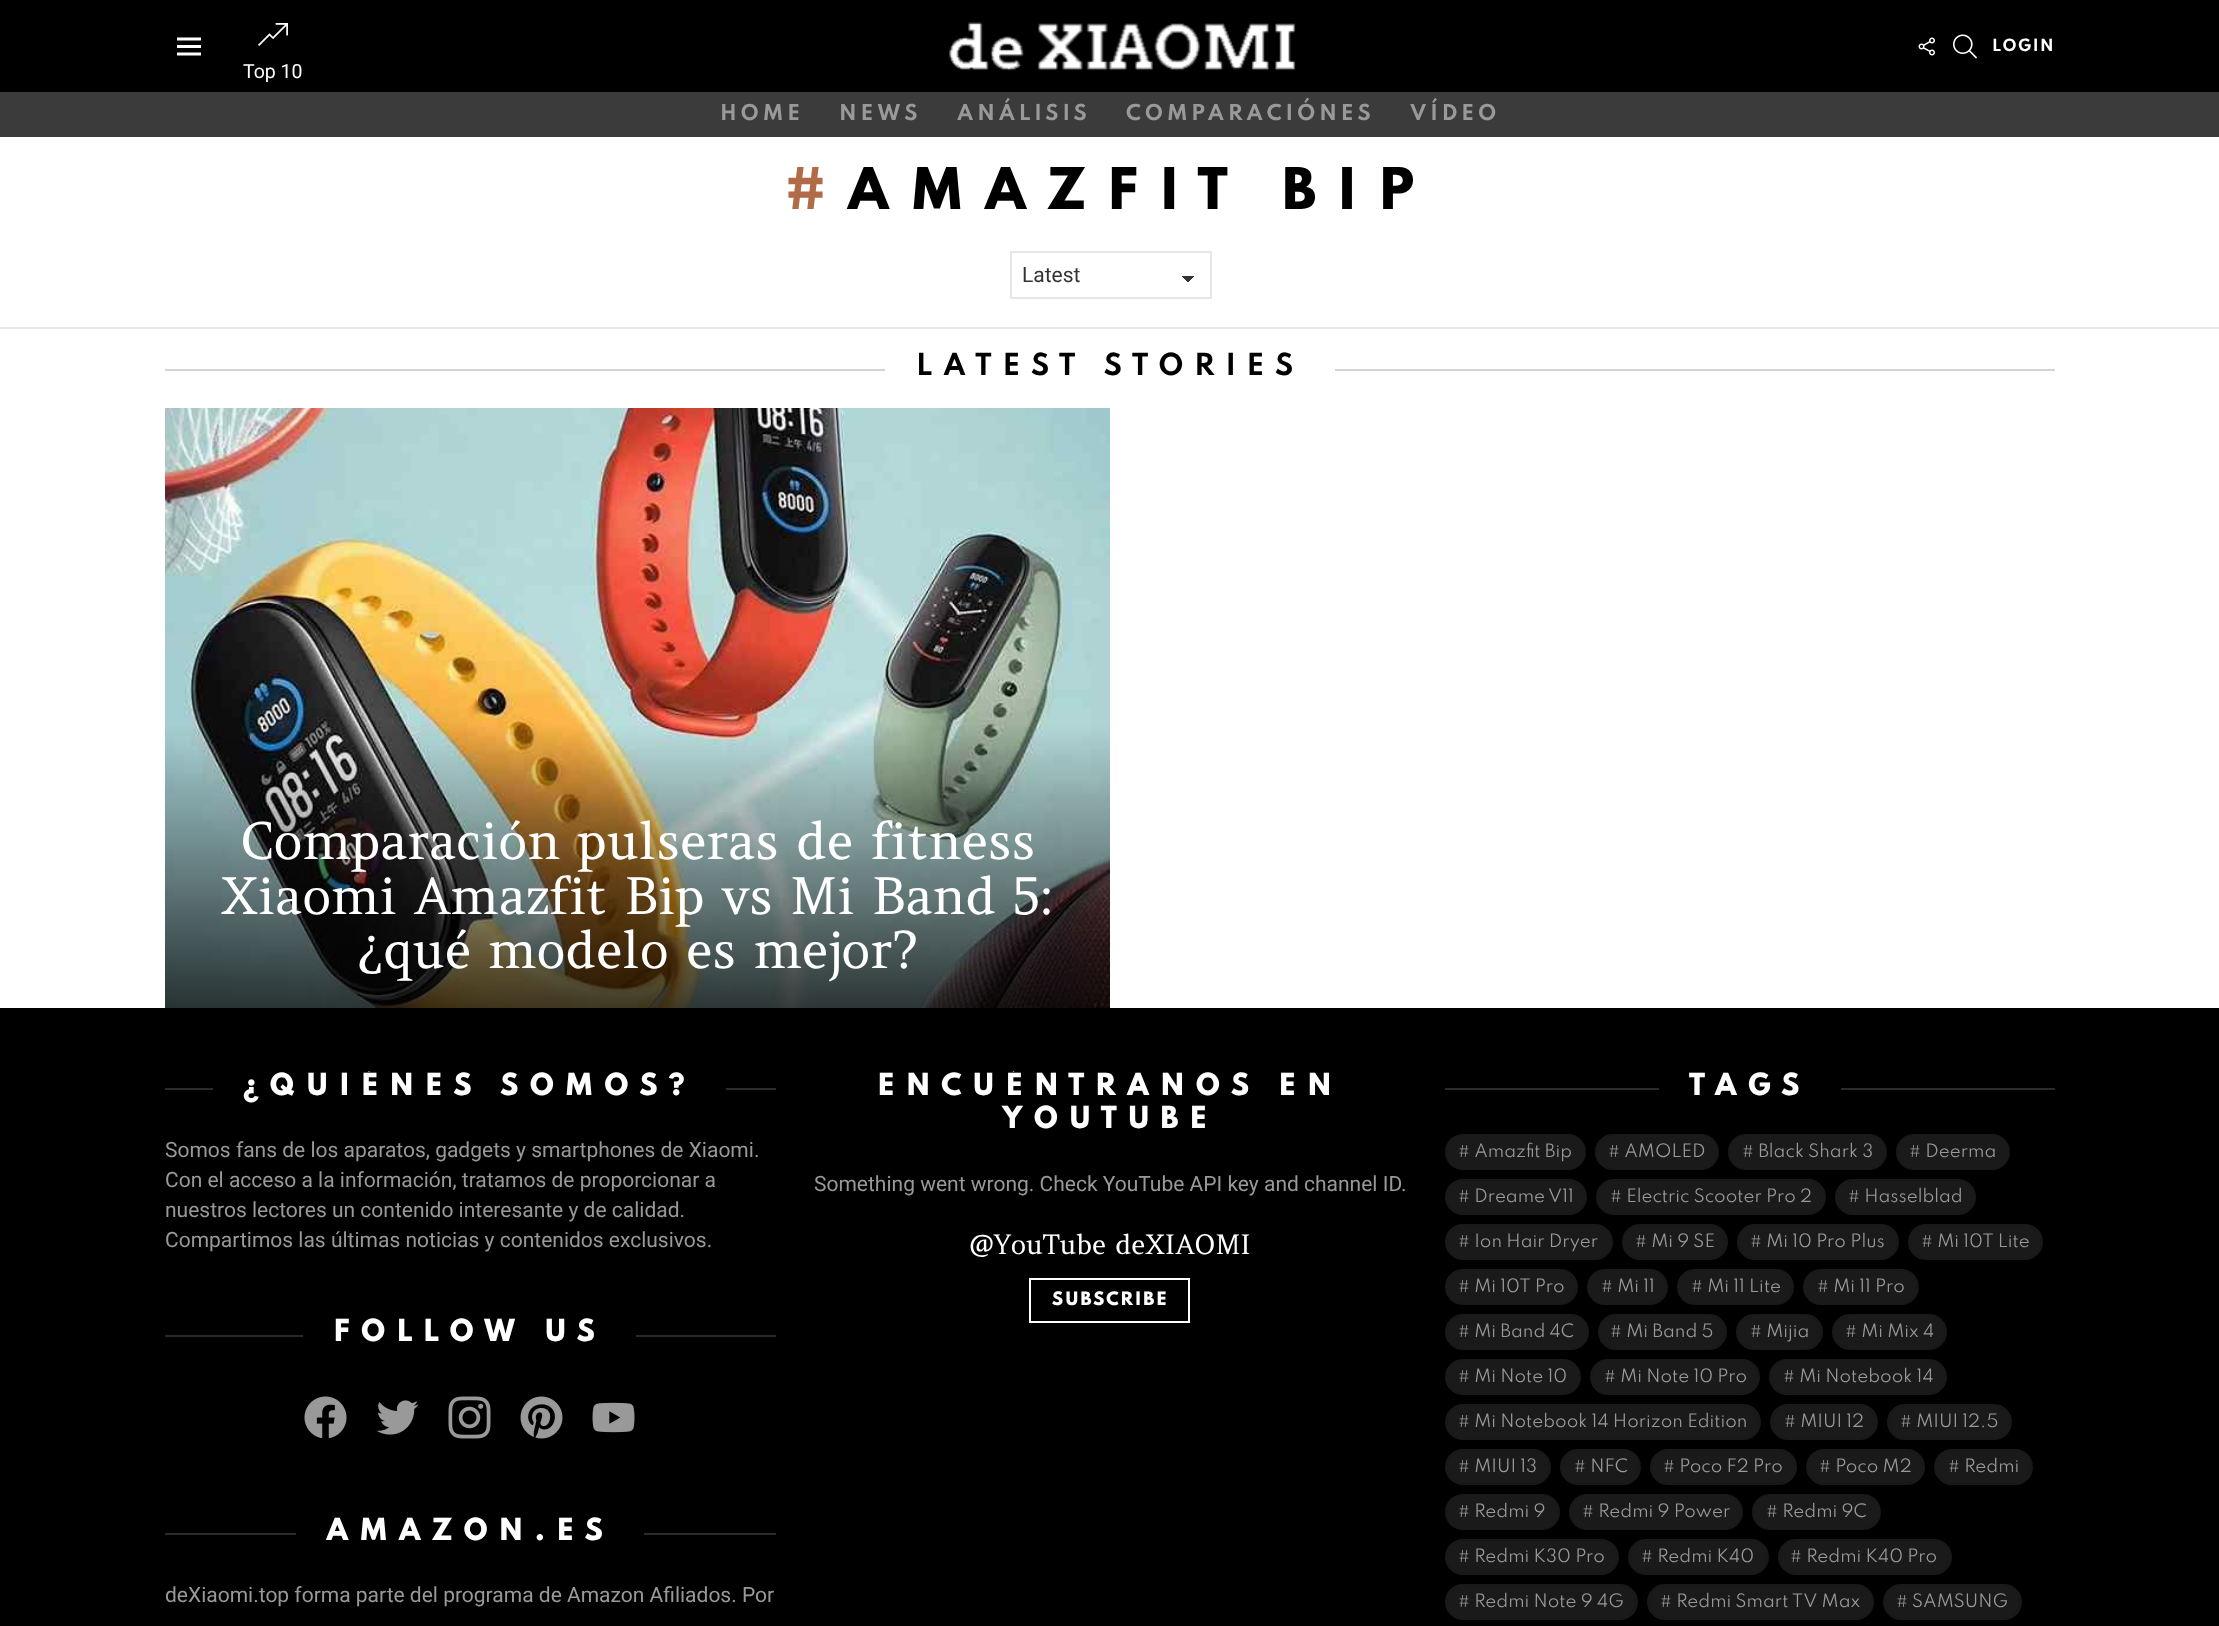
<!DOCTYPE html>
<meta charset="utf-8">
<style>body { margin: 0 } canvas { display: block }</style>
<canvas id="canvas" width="2219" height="1626"></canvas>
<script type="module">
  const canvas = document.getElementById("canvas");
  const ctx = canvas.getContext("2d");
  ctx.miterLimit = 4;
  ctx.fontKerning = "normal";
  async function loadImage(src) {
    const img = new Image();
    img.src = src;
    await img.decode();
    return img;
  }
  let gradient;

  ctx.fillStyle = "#ffffff";
  ctx.fillRect(0, 0, 2219, 1626);
  ctx.fillStyle = "#000000";
  ctx.fillRect(0, 0, 2219, 92);
  ctx.drawImage(await loadImage("img1.png"), 949, 22, 347, 49);
  ctx.drawImage(await loadImage("img2.png"), 1918, 37, 17, 19);
  ctx.drawImage(await loadImage("img3.png"), 1953, 34, 24, 25);
  ctx.letterSpacing = "1.5px";
  ctx.font = "bold 15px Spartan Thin";
  ctx.fillStyle = "#ffffff";
  ctx.fillText("LOGIN", 1992, 51);
  ctx.drawImage(await loadImage("img4.png"), 177, 37, 24, 19);
  ctx.drawImage(await loadImage("img5.png"), 258, 23, 30, 23);
  ctx.letterSpacing = "0px";
  ctx.font = "19.5px Roboto";
  ctx.fillText("Top 10", 243, 78);
  ctx.fillStyle = "#3b3b3b";
  ctx.fillRect(0, 92, 2219, 45);
  ctx.letterSpacing = "3.9px";
  ctx.font = "bold 19.5px Spartan Thin";
  ctx.fillStyle = "#999999";
  ctx.fillText("HOME", 720, 120);
  ctx.fillText("NEWS", 839, 120);
  ctx.fillText("ANÁLISIS", 957, 120);
  ctx.fillText("COMPARACIÓNES", 1126, 120);
  ctx.fillText("VÍDEO", 1410, 120);
  ctx.save();
  ctx.beginPath();
  ctx.rect(165, 167, 1890, 54);
  ctx.clip();
  ctx.letterSpacing = "20.4px";
  ctx.font = "800 51px Spartan Thin";
  ctx.fillStyle = "#b26b49";
  ctx.fillText("#", 785, 209);
  ctx.fillStyle = "#000000";
  ctx.fillText("AMAZFIT BIP", 847, 209);
  ctx.restore();
  gradient = ctx.createLinearGradient(1188, 276, 1195, 282);
  gradient.addColorStop(0.5, "#333333");
  gradient.addColorStop(0.5, "#ffffff");
  ctx.fillStyle = gradient;
  ctx.fillRect(1188, 276, 8, 6);
  gradient = ctx.createLinearGradient(1181, 282, 1188, 276);
  gradient.addColorStop(0.5, "#ffffff");
  gradient.addColorStop(0.5, "#333333");
  ctx.fillStyle = gradient;
  ctx.fillRect(1181, 276, 7, 6);
  ctx.strokeStyle = "#e6e6e6";
  ctx.lineWidth = 2;
  ctx.strokeRect(1011, 252, 200, 46);
  ctx.letterSpacing = "0px";
  ctx.font = "21px Roboto";
  ctx.fillStyle = "#333333";
  ctx.fillText("Latest", 1022, 282);
  ctx.fillStyle = "#e6e6e6";
  ctx.fillRect(0, 327, 2219, 2);
  ctx.fillStyle = "#d4d4d4";
  ctx.fillRect(165, 369, 720, 2);
  ctx.letterSpacing = "10.75px";
  ctx.font = "bold 27px Spartan Thin";
  ctx.fillStyle = "#000000";
  ctx.fillText("LATEST STORIES", 916, 375);
  ctx.fillStyle = "#d4d4d4";
  ctx.fillRect(1335, 369, 720, 2);
  ctx.drawImage(await loadImage("img6.png"), 165, 408, 945, 600);
  ctx.letterSpacing = "0px";
  ctx.font = "51px Amethysta";
  ctx.fillStyle = "#ffffff";
  ctx.fillText("Comparación pulseras de fitness", 240, 859);
  ctx.fillText("Xiaomi Amazfit Bip vs Mi Band 5:", 221, 914);
  ctx.fillText("¿qué modelo es mejor?", 358, 968);
  ctx.fillStyle = "#000000";
  ctx.fillRect(0, 1008, 2219, 618);
  ctx.fillStyle = "#2b2b2b";
  ctx.fillRect(165, 1088, 48, 2);
  ctx.save();
  ctx.beginPath();
  ctx.rect(165, 1071, 611, 33);
  ctx.clip();
  ctx.letterSpacing = "10.75px";
  ctx.font = "800 27px Spartan Thin";
  ctx.fillStyle = "#ffffff";
  ctx.fillText("¿QUIÉNES SOMOS?", 243, 1095);
  ctx.restore();
  ctx.fillRect(726, 1088, 50, 2);
  ctx.font = "21px Roboto";
  ctx.fillStyle = "#999999";
  ctx.fillText("Somos fans de los aparatos, gadgets y smartphones de Xiaomi.", 165, 1157);
  ctx.fillText("Con el acceso a la información, tratamos de proporcionar a", 165, 1187);
  ctx.fillText("nuestros lectores un contenido interesante y de calidad.", 165, 1217);
  ctx.fillText("Compartimos las últimas noticias y contenidos exclusivos.", 165, 1247);
  ctx.fillStyle = "#2b2b2b";
  ctx.fillRect(165, 1335, 138, 2);
  ctx.letterSpacing = "10.75px";
  ctx.font = "800 27px Spartan Thin";
  ctx.fillStyle = "#ffffff";
  ctx.fillText("FOLLOW US", 333, 1341);
  ctx.fillStyle = "#2b2b2b";
  ctx.fillRect(636, 1335, 140, 2);
  ctx.drawImage(await loadImage("img7.png"), 304, 1396, 43, 43);
  ctx.drawImage(await loadImage("img8.png"), 376, 1400, 43, 35);
  ctx.drawImage(await loadImage("img9.png"), 448, 1396, 43, 43);
  ctx.drawImage(await loadImage("img10.png"), 520, 1396, 43, 43);
  ctx.drawImage(await loadImage("img11.png"), 592, 1402, 43, 31);
  ctx.fillRect(165, 1533, 131, 2);
  ctx.fillStyle = "#ffffff";
  ctx.fillText("AMAZON.ES", 326, 1540);
  ctx.fillStyle = "#2b2b2b";
  ctx.fillRect(644, 1533, 132, 2);
  ctx.letterSpacing = "0px";
  ctx.font = "21px Roboto";
  ctx.fillStyle = "#999999";
  ctx.fillText("deXiaomi.top forma parte del programa de Amazon Afiliados. Por", 165, 1602);
  ctx.save();
  ctx.beginPath();
  ctx.rect(806, 1071, 609, 68);
  ctx.clip();
  ctx.letterSpacing = "10.75px";
  ctx.font = "800 27px Spartan Thin";
  ctx.fillStyle = "#ffffff";
  ctx.fillText("ENCUÉNTRANOS EN", 877, 1095);
  ctx.restore();
  ctx.letterSpacing = "10.75px";
  ctx.font = "800 27px Spartan Thin";
  ctx.fillStyle = "#ffffff";
  ctx.fillText("YOUTUBE", 1002, 1128);
  ctx.letterSpacing = "0px";
  ctx.font = "21px Roboto";
  ctx.fillStyle = "#999999";
  ctx.fillText("Something went wrong. Check YouTube API key and channel ID.", 814, 1191);
  ctx.font = "27px Amethysta";
  ctx.fillStyle = "#ffffff";
  ctx.fillText("@YouTube deXIAOMI", 969, 1254);
  ctx.strokeStyle = "#ffffff";
  ctx.strokeRect(1030, 1279, 159, 43);
  ctx.letterSpacing = "1.75px";
  ctx.font = "800 16.5px Spartan Thin";
  ctx.fillText("SUBSCRIBE", 1052, 1305);
  ctx.fillStyle = "#2b2b2b";
  ctx.fillRect(1445, 1088, 214, 2);
  ctx.letterSpacing = "10.75px";
  ctx.font = "800 27px Spartan Thin";
  ctx.fillStyle = "#ffffff";
  ctx.fillText("TAGS", 1689, 1095);
  ctx.fillStyle = "#2b2b2b";
  ctx.fillRect(1841, 1088, 214, 2);
  ctx.letterSpacing = "0px";
  ctx.font = "16.5px Spartan Thin";
  ctx.fillStyle = "#999999";
  ctx.fillText("# Amazfit Bip", 1458, 1157);
  ctx.fillStyle = "rgba(153, 153, 153, 0.17)";
  ctx.beginPath();
  ctx.roundRect(1446, 1135, 139, 34, 17);
  ctx.fill();
  ctx.strokeStyle = "#191919";
  ctx.stroke();
  ctx.fillStyle = "#999999";
  ctx.fillText("# AMOLED", 1608, 1157);
  ctx.fillStyle = "rgba(153, 153, 153, 0.17)";
  ctx.beginPath();
  ctx.roundRect(1596, 1135, 122, 34, 17);
  ctx.fill();
  ctx.stroke();
  ctx.fillStyle = "#999999";
  ctx.fillText("# Black Shark 3", 1742, 1157);
  ctx.fillStyle = "rgba(153, 153, 153, 0.17)";
  ctx.beginPath();
  ctx.roundRect(1729, 1135, 157, 34, 17);
  ctx.fill();
  ctx.stroke();
  ctx.fillStyle = "#999999";
  ctx.fillText("# Deerma", 1909, 1157);
  ctx.fillStyle = "rgba(153, 153, 153, 0.17)";
  ctx.beginPath();
  ctx.roundRect(1897, 1135, 112, 34, 17);
  ctx.fill();
  ctx.stroke();
  ctx.fillStyle = "#999999";
  ctx.fillText("# Dreame V11", 1458, 1202);
  ctx.fillStyle = "rgba(153, 153, 153, 0.17)";
  ctx.beginPath();
  ctx.roundRect(1446, 1180, 140, 34, 17);
  ctx.fill();
  ctx.stroke();
  ctx.fillStyle = "#999999";
  ctx.fillText("# Electric Scooter Pro 2", 1610, 1202);
  ctx.fillStyle = "rgba(153, 153, 153, 0.17)";
  ctx.beginPath();
  ctx.roundRect(1597, 1180, 228, 34, 17);
  ctx.fill();
  ctx.stroke();
  ctx.fillStyle = "#999999";
  ctx.fillText("# Hasselblad", 1848, 1202);
  ctx.fillStyle = "rgba(153, 153, 153, 0.17)";
  ctx.beginPath();
  ctx.roundRect(1836, 1180, 139, 34, 17);
  ctx.fill();
  ctx.stroke();
  ctx.fillStyle = "#999999";
  ctx.fillText("# Ion Hair Dryer", 1458, 1247);
  ctx.fillStyle = "rgba(153, 153, 153, 0.17)";
  ctx.beginPath();
  ctx.roundRect(1446, 1225, 166, 34, 17);
  ctx.fill();
  ctx.stroke();
  ctx.fillStyle = "#999999";
  ctx.fillText("# Mi 9 SE", 1635, 1247);
  ctx.fillStyle = "rgba(153, 153, 153, 0.17)";
  ctx.beginPath();
  ctx.roundRect(1623, 1225, 104, 34, 17);
  ctx.fill();
  ctx.stroke();
  ctx.fillStyle = "#999999";
  ctx.fillText("# Mi 10 Pro Plus", 1750, 1247);
  ctx.fillStyle = "rgba(153, 153, 153, 0.17)";
  ctx.beginPath();
  ctx.roundRect(1738, 1225, 160, 34, 17);
  ctx.fill();
  ctx.stroke();
  ctx.fillStyle = "#999999";
  ctx.fillText("# Mi 10T Lite", 1921, 1247);
  ctx.fillStyle = "rgba(153, 153, 153, 0.17)";
  ctx.beginPath();
  ctx.roundRect(1909, 1225, 133, 34, 17);
  ctx.fill();
  ctx.stroke();
  ctx.fillStyle = "#999999";
  ctx.fillText("# Mi 10T Pro", 1458, 1292);
  ctx.fillStyle = "rgba(153, 153, 153, 0.17)";
  ctx.beginPath();
  ctx.roundRect(1446, 1270, 131, 34, 17);
  ctx.fill();
  ctx.stroke();
  ctx.fillStyle = "#999999";
  ctx.fillText("# Mi 11", 1601, 1292);
  ctx.fillStyle = "rgba(153, 153, 153, 0.17)";
  ctx.beginPath();
  ctx.roundRect(1588, 1270, 79, 34, 17);
  ctx.fill();
  ctx.stroke();
  ctx.fillStyle = "#999999";
  ctx.fillText("# Mi 11 Lite", 1691, 1292);
  ctx.fillStyle = "rgba(153, 153, 153, 0.17)";
  ctx.beginPath();
  ctx.roundRect(1678, 1270, 115, 34, 17);
  ctx.fill();
  ctx.stroke();
  ctx.fillStyle = "#999999";
  ctx.fillText("# Mi 11 Pro", 1817, 1292);
  ctx.fillStyle = "rgba(153, 153, 153, 0.17)";
  ctx.beginPath();
  ctx.roundRect(1804, 1270, 114, 34, 17);
  ctx.fill();
  ctx.stroke();
  ctx.fillStyle = "#999999";
  ctx.fillText("# Mi Band 4C", 1458, 1337);
  ctx.fillStyle = "rgba(153, 153, 153, 0.17)";
  ctx.beginPath();
  ctx.roundRect(1446, 1315, 142, 34, 17);
  ctx.fill();
  ctx.stroke();
  ctx.fillStyle = "#999999";
  ctx.fillText("# Mi Band 5", 1610, 1337);
  ctx.fillStyle = "rgba(153, 153, 153, 0.17)";
  ctx.beginPath();
  ctx.roundRect(1599, 1315, 127, 34, 17);
  ctx.fill();
  ctx.stroke();
  ctx.fillStyle = "#999999";
  ctx.fillText("# Mijia", 1750, 1337);
  ctx.fillStyle = "rgba(153, 153, 153, 0.17)";
  ctx.beginPath();
  ctx.roundRect(1737, 1315, 85, 34, 17);
  ctx.fill();
  ctx.stroke();
  ctx.fillStyle = "#999999";
  ctx.fillText("# Mi Mix 4", 1845, 1337);
  ctx.fillStyle = "rgba(153, 153, 153, 0.17)";
  ctx.beginPath();
  ctx.roundRect(1833, 1315, 113, 34, 17);
  ctx.fill();
  ctx.stroke();
  ctx.fillStyle = "#999999";
  ctx.fillText("# Mi Note 10", 1458, 1382);
  ctx.fillStyle = "rgba(153, 153, 153, 0.17)";
  ctx.beginPath();
  ctx.roundRect(1446, 1360, 134, 34, 17);
  ctx.fill();
  ctx.stroke();
  ctx.fillStyle = "#999999";
  ctx.fillText("# Mi Note 10 Pro", 1604, 1382);
  ctx.fillStyle = "rgba(153, 153, 153, 0.17)";
  ctx.beginPath();
  ctx.roundRect(1591, 1360, 168, 34, 17);
  ctx.fill();
  ctx.stroke();
  ctx.fillStyle = "#999999";
  ctx.fillText("# Mi Notebook 14", 1783, 1382);
  ctx.fillStyle = "rgba(153, 153, 153, 0.17)";
  ctx.beginPath();
  ctx.roundRect(1770, 1360, 176, 34, 17);
  ctx.fill();
  ctx.stroke();
  ctx.fillStyle = "#999999";
  ctx.fillText("# Mi Notebook 14 Horizon Edition", 1458, 1427);
  ctx.fillStyle = "rgba(153, 153, 153, 0.17)";
  ctx.beginPath();
  ctx.roundRect(1446, 1405, 314, 34, 17);
  ctx.fill();
  ctx.stroke();
  ctx.fillStyle = "#999999";
  ctx.fillText("# MIUI 12", 1784, 1427);
  ctx.fillStyle = "rgba(153, 153, 153, 0.17)";
  ctx.beginPath();
  ctx.roundRect(1771, 1405, 106, 34, 17);
  ctx.fill();
  ctx.stroke();
  ctx.fillStyle = "#999999";
  ctx.fillText("# MIUI 12.5", 1900, 1427);
  ctx.fillStyle = "rgba(153, 153, 153, 0.17)";
  ctx.beginPath();
  ctx.roundRect(1888, 1405, 123, 34, 17);
  ctx.fill();
  ctx.stroke();
  ctx.fillStyle = "#999999";
  ctx.fillText("# MIUI 13", 1458, 1472);
  ctx.fillStyle = "rgba(153, 153, 153, 0.17)";
  ctx.beginPath();
  ctx.roundRect(1446, 1450, 104, 34, 17);
  ctx.fill();
  ctx.stroke();
  ctx.fillStyle = "#999999";
  ctx.fillText("# NFC", 1574, 1472);
  ctx.fillStyle = "rgba(153, 153, 153, 0.17)";
  ctx.beginPath();
  ctx.roundRect(1561, 1450, 79, 34, 17);
  ctx.fill();
  ctx.stroke();
  ctx.fillStyle = "#999999";
  ctx.fillText("# Poco F2 Pro", 1663, 1472);
  ctx.fillStyle = "rgba(153, 153, 153, 0.17)";
  ctx.beginPath();
  ctx.roundRect(1651, 1450, 145, 34, 17);
  ctx.fill();
  ctx.stroke();
  ctx.fillStyle = "#999999";
  ctx.fillText("# Poco M2", 1819, 1472);
  ctx.fillStyle = "rgba(153, 153, 153, 0.17)";
  ctx.beginPath();
  ctx.roundRect(1807, 1450, 117, 34, 17);
  ctx.fill();
  ctx.stroke();
  ctx.fillStyle = "#999999";
  ctx.fillText("# Redmi", 1948, 1472);
  ctx.fillStyle = "rgba(153, 153, 153, 0.17)";
  ctx.beginPath();
  ctx.roundRect(1935, 1450, 97, 34, 17);
  ctx.fill();
  ctx.stroke();
  ctx.fillStyle = "#999999";
  ctx.fillText("# Redmi 9", 1458, 1517);
  ctx.fillStyle = "rgba(153, 153, 153, 0.17)";
  ctx.beginPath();
  ctx.roundRect(1446, 1495, 113, 34, 17);
  ctx.fill();
  ctx.stroke();
  ctx.fillStyle = "#999999";
  ctx.fillText("# Redmi 9 Power", 1582, 1517);
  ctx.fillStyle = "rgba(153, 153, 153, 0.17)";
  ctx.beginPath();
  ctx.roundRect(1570, 1495, 172, 34, 17);
  ctx.fill();
  ctx.stroke();
  ctx.fillStyle = "#999999";
  ctx.fillText("# Redmi 9C", 1766, 1517);
  ctx.fillStyle = "rgba(153, 153, 153, 0.17)";
  ctx.beginPath();
  ctx.roundRect(1753, 1495, 127, 34, 17);
  ctx.fill();
  ctx.stroke();
  ctx.fillStyle = "#999999";
  ctx.fillText("# Redmi K30 Pro", 1458, 1562);
  ctx.fillStyle = "rgba(153, 153, 153, 0.17)";
  ctx.beginPath();
  ctx.roundRect(1446, 1540, 172, 34, 17);
  ctx.fill();
  ctx.stroke();
  ctx.fillStyle = "#999999";
  ctx.fillText("# Redmi K40", 1641, 1562);
  ctx.fillStyle = "rgba(153, 153, 153, 0.17)";
  ctx.beginPath();
  ctx.roundRect(1629, 1540, 139, 34, 17);
  ctx.fill();
  ctx.stroke();
  ctx.fillStyle = "#999999";
  ctx.fillText("# Redmi K40 Pro", 1790, 1562);
  ctx.fillStyle = "rgba(153, 153, 153, 0.17)";
  ctx.beginPath();
  ctx.roundRect(1779, 1540, 172, 34, 17);
  ctx.fill();
  ctx.stroke();
  ctx.fillStyle = "#999999";
  ctx.fillText("# Redmi Note 9 4G", 1458, 1607);
  ctx.fillStyle = "rgba(153, 153, 153, 0.17)";
  ctx.beginPath();
  ctx.roundRect(1446, 1585, 191, 34, 17);
  ctx.fill();
  ctx.stroke();
  ctx.fillStyle = "#999999";
  ctx.fillText("# Redmi Smart TV Max", 1660, 1607);
  ctx.fillStyle = "rgba(153, 153, 153, 0.17)";
  ctx.beginPath();
  ctx.roundRect(1648, 1585, 225, 34, 17);
  ctx.fill();
  ctx.stroke();
  ctx.fillStyle = "#999999";
  ctx.fillText("# SAMSUNG", 1896, 1607);
  ctx.fillStyle = "rgba(153, 153, 153, 0.17)";
  ctx.beginPath();
  ctx.roundRect(1884, 1585, 137, 34, 17);
  ctx.fill();
  ctx.stroke();
</script>
